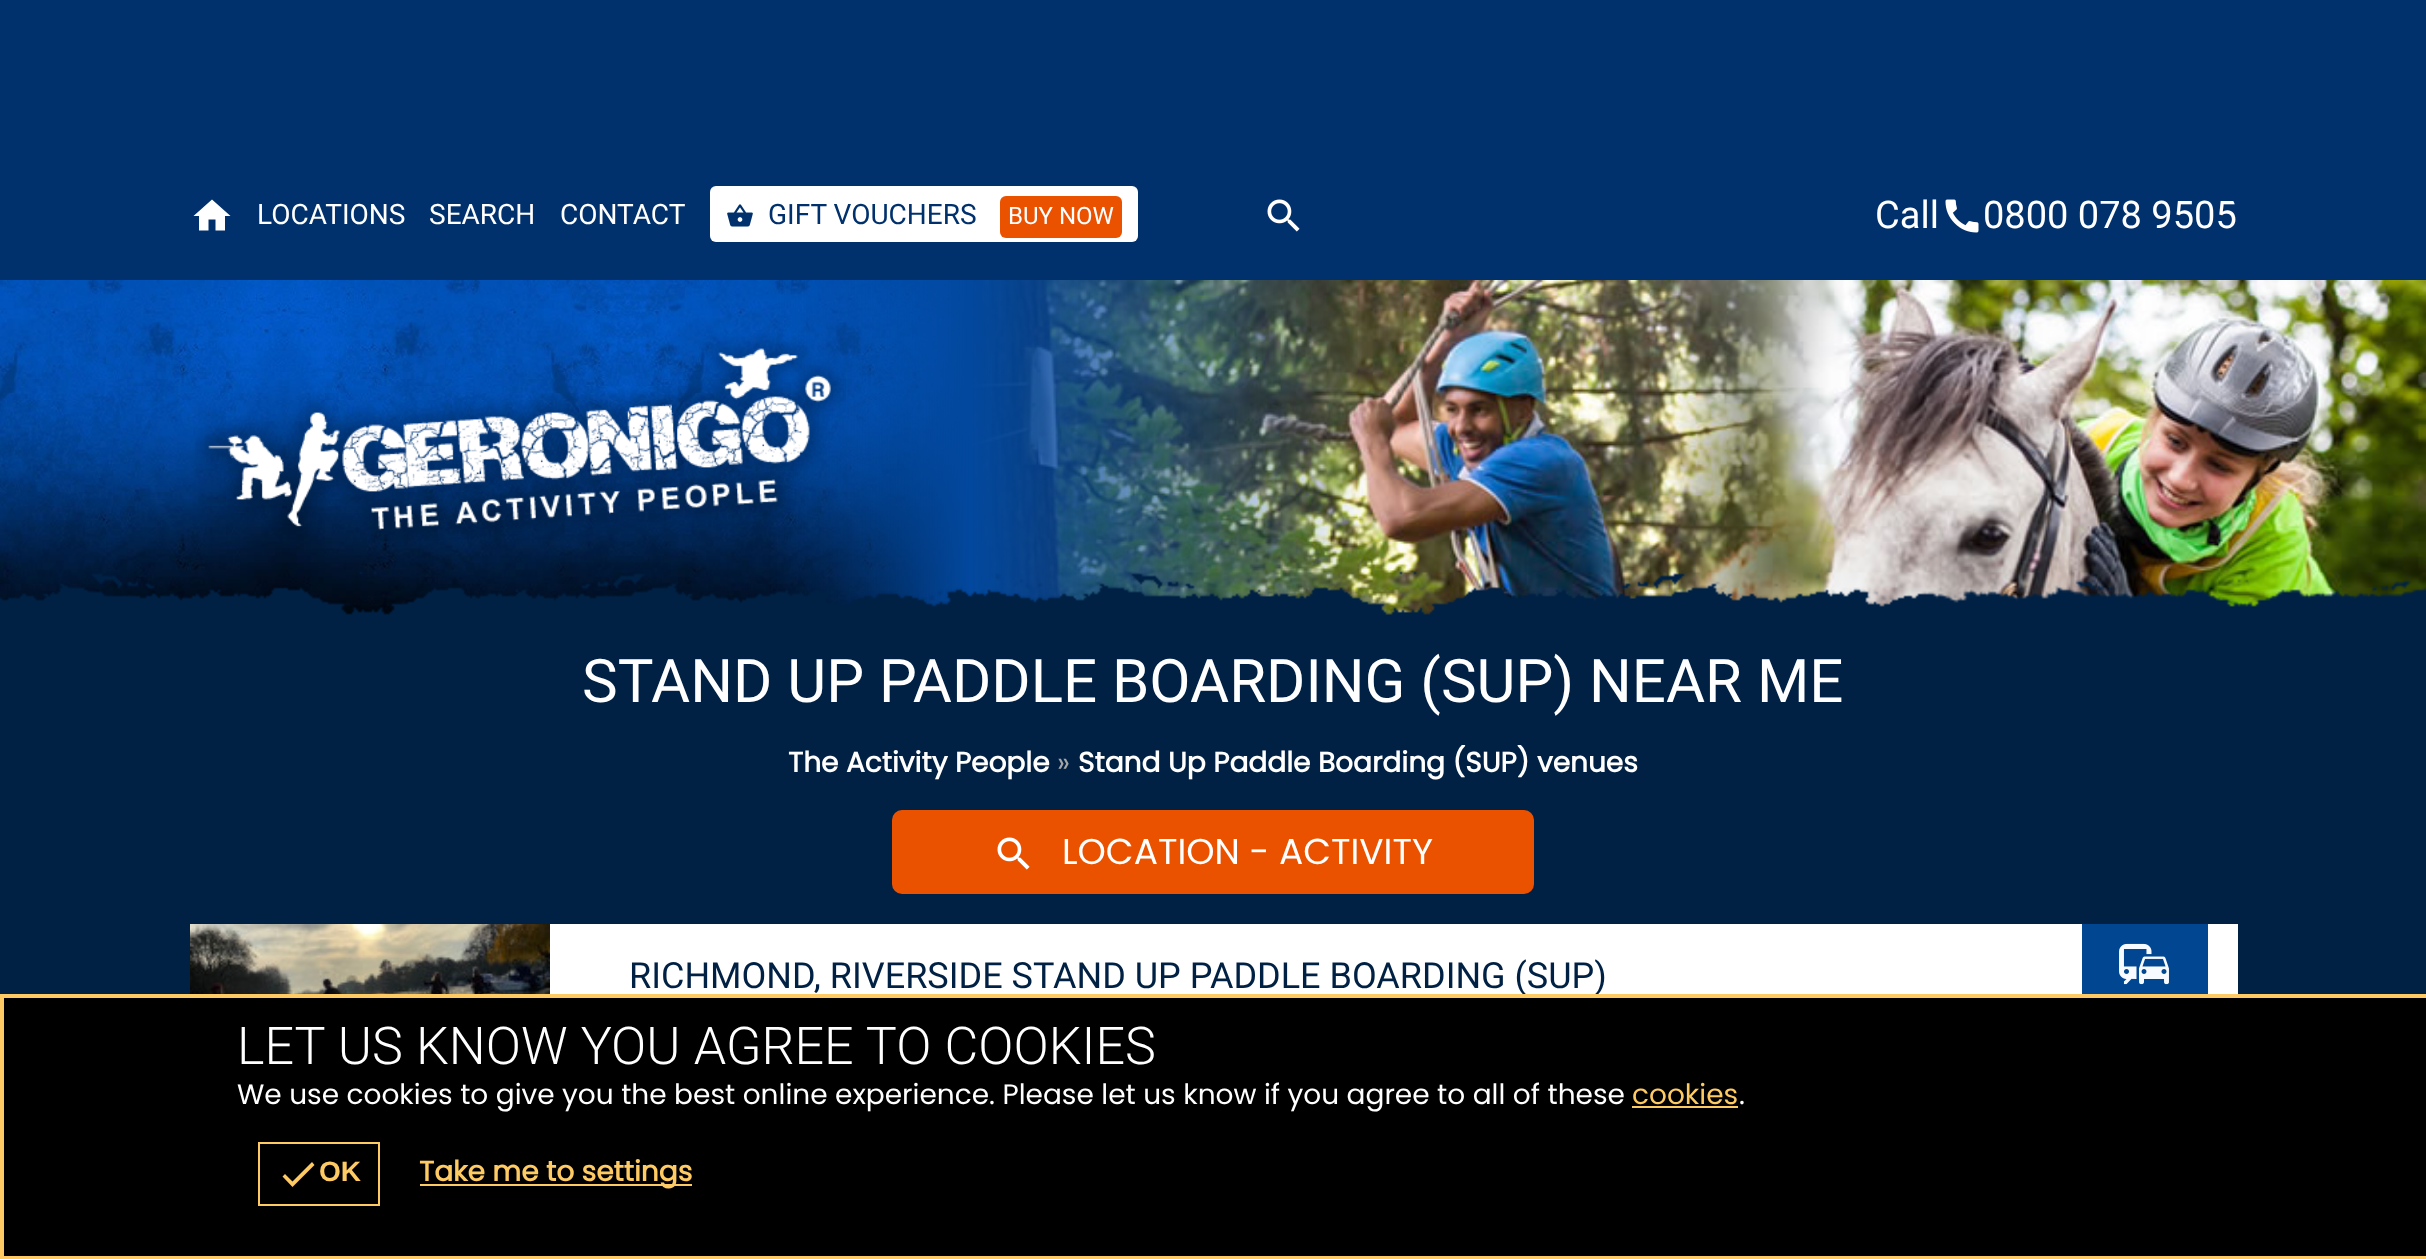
<!DOCTYPE html>
<meta charset="utf-8">
<style>body { margin: 0 } canvas { display: block }</style>
<canvas id="canvas" width="2426" height="1259"></canvas>
<script type="module">
  const canvas = document.getElementById("canvas");
  const ctx = canvas.getContext("2d");
  ctx.miterLimit = 4;
  ctx.fontKerning = "normal";
  async function loadImage(src) {
    const img = new Image();
    img.src = src;
    await img.decode();
    return img;
  }

  ctx.fillStyle = "#002144";
  ctx.fillRect(0, 0, 2426, 1259);
  ctx.fillStyle = "#01316c";
  ctx.fillRect(0, 0, 2426, 280);
  ctx.drawImage(await loadImage("img1.png"), 970, 280, 1456, 335);
  ctx.fillStyle = "#ffffff";
  ctx.beginPath();
  ctx.moveTo(208.5, 230.5);
  ctx.lineTo(199, 230.5);
  ctx.lineTo(199, 216);
  ctx.lineTo(193.5, 216);
  ctx.lineTo(212, 199.5);
  ctx.lineTo(230.5, 216);
  ctx.lineTo(225, 216);
  ctx.lineTo(225, 230.5);
  ctx.lineTo(215.5, 230.5);
  ctx.lineTo(215.5, 219.5);
  ctx.lineTo(208.5, 219.5);
  ctx.closePath();
  ctx.fill();
  ctx.font = "28px Roboto";
  ctx.fillText("LOCATIONS", 257, 224);
  ctx.fillText("SEARCH", 429, 224);
  ctx.fillText("CONTACT", 560, 224);
  ctx.beginPath();
  ctx.roundRect(710, 186, 428, 56, 6);
  ctx.fill();
  ctx.drawImage(await loadImage("img2.png"), 727, 204, 26, 23);
  ctx.fillStyle = "#01316c";
  ctx.fillText("GIFT VOUCHERS", 768, 224);
  ctx.fillStyle = "#eb5200";
  ctx.beginPath();
  ctx.roundRect(1000, 196, 122, 42, 6);
  ctx.fill();
  ctx.font = "24px Roboto";
  ctx.fillStyle = "#ffffff";
  ctx.fillText("BUY NOW", 1008, 224);
  ctx.drawImage(await loadImage("img3.png"), 1267, 199, 33, 33);
  ctx.font = "38px Roboto";
  ctx.fillText("Call", 1875, 228);
  ctx.drawImage(await loadImage("img4.png"), 1945, 199, 34, 34);
  ctx.save();
  ctx.beginPath();
  ctx.roundRect(1872, 190, 366, 52, 26);
  ctx.clip();
  ctx.fillText("0800 078 9505", 1983, 228);
  ctx.restore();
  ctx.drawImage(await loadImage("img6.png"), 0, 280, 970, 335);
  ctx.drawImage(await loadImage("img5.png"), 195, 333, 651, 208);
  ctx.drawImage(await loadImage("img7.png"), 0, 570, 2426, 50);
  ctx.font = "60px Roboto";
  ctx.fillText("STAND UP PADDLE BOARDING (SUP) NEAR ME", 582, 702);
  ctx.font = "bold 28px Poppins";
  ctx.fillText("The Activity People", 788, 772);
  ctx.font = "28px Poppins";
  ctx.fillStyle = "#a6a6a6";
  ctx.fillText("»", 1057, 772);
  ctx.font = "bold 28px Poppins";
  ctx.fillStyle = "#ffffff";
  ctx.fillText("Stand Up Paddle Boarding (SUP) venues", 1078, 772);
  ctx.fillStyle = "#eb5200";
  ctx.beginPath();
  ctx.roundRect(892, 810, 642, 84, 10);
  ctx.fill();
  ctx.drawImage(await loadImage("img8.png"), 997, 837, 33, 33);
  ctx.font = "36px Poppins";
  ctx.fillStyle = "#ffffff";
  ctx.fillText("LOCATION - ACTIVITY", 1062, 864);
  ctx.fillRect(550, 924, 1688, 70);
  ctx.drawImage(await loadImage("img9.png"), 190, 924, 360, 70);
  ctx.font = "36px Roboto";
  ctx.fillStyle = "#002144";
  ctx.fillText("RICHMOND, RIVERSIDE STAND UP PADDLE BOARDING (SUP)", 629, 988);
  ctx.fillStyle = "#004691";
  ctx.fillRect(2082, 924, 126, 70);
  ctx.drawImage(await loadImage("img10.png"), 2119, 943, 50, 42);
  ctx.fillStyle = "#000000";
  ctx.beginPath();
  ctx.rect(2, 996, 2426, 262);
  ctx.fill();
  ctx.strokeStyle = "#feca64";
  ctx.lineWidth = 4;
  ctx.stroke();
  ctx.wordSpacing = "0.5px";
  ctx.font = "300 52px Roboto";
  ctx.fillStyle = "#ffffff";
  ctx.fillText("LET US KNOW YOU AGREE TO COOKIES", 237, 1064);
  ctx.wordSpacing = "0px";
  ctx.font = "28px Poppins";
  ctx.fillText("We use cookies to give you the best online experience. Please let us know if you agree to all of these", 237, 1104);
  ctx.fillStyle = "#feca64";
  ctx.fillText("cookies", 1632, 1104);
  ctx.fillRect(1632, 1106, 106, 2);
  ctx.fillStyle = "#ffffff";
  ctx.fillText(".", 1739, 1104);
  ctx.lineWidth = 2;
  ctx.strokeRect(259, 1143, 120, 62);
  ctx.fillStyle = "#feca64";
  ctx.beginPath();
  ctx.moveTo(292.5, 1181.5);
  ctx.lineTo(312, 1162);
  ctx.lineTo(314.5, 1165);
  ctx.lineTo(292.5, 1187);
  ctx.lineTo(282.5, 1176.5);
  ctx.lineTo(285, 1174);
  ctx.closePath();
  ctx.fill();
  ctx.font = "bold 28px Liberation Sans";
  ctx.fillText("OK", 319, 1181);
  ctx.fillRect(420, 1184, 272, 2);
  ctx.font = "bold 28px Poppins";
  ctx.fillText("Take me to settings", 419, 1181);
</script>
